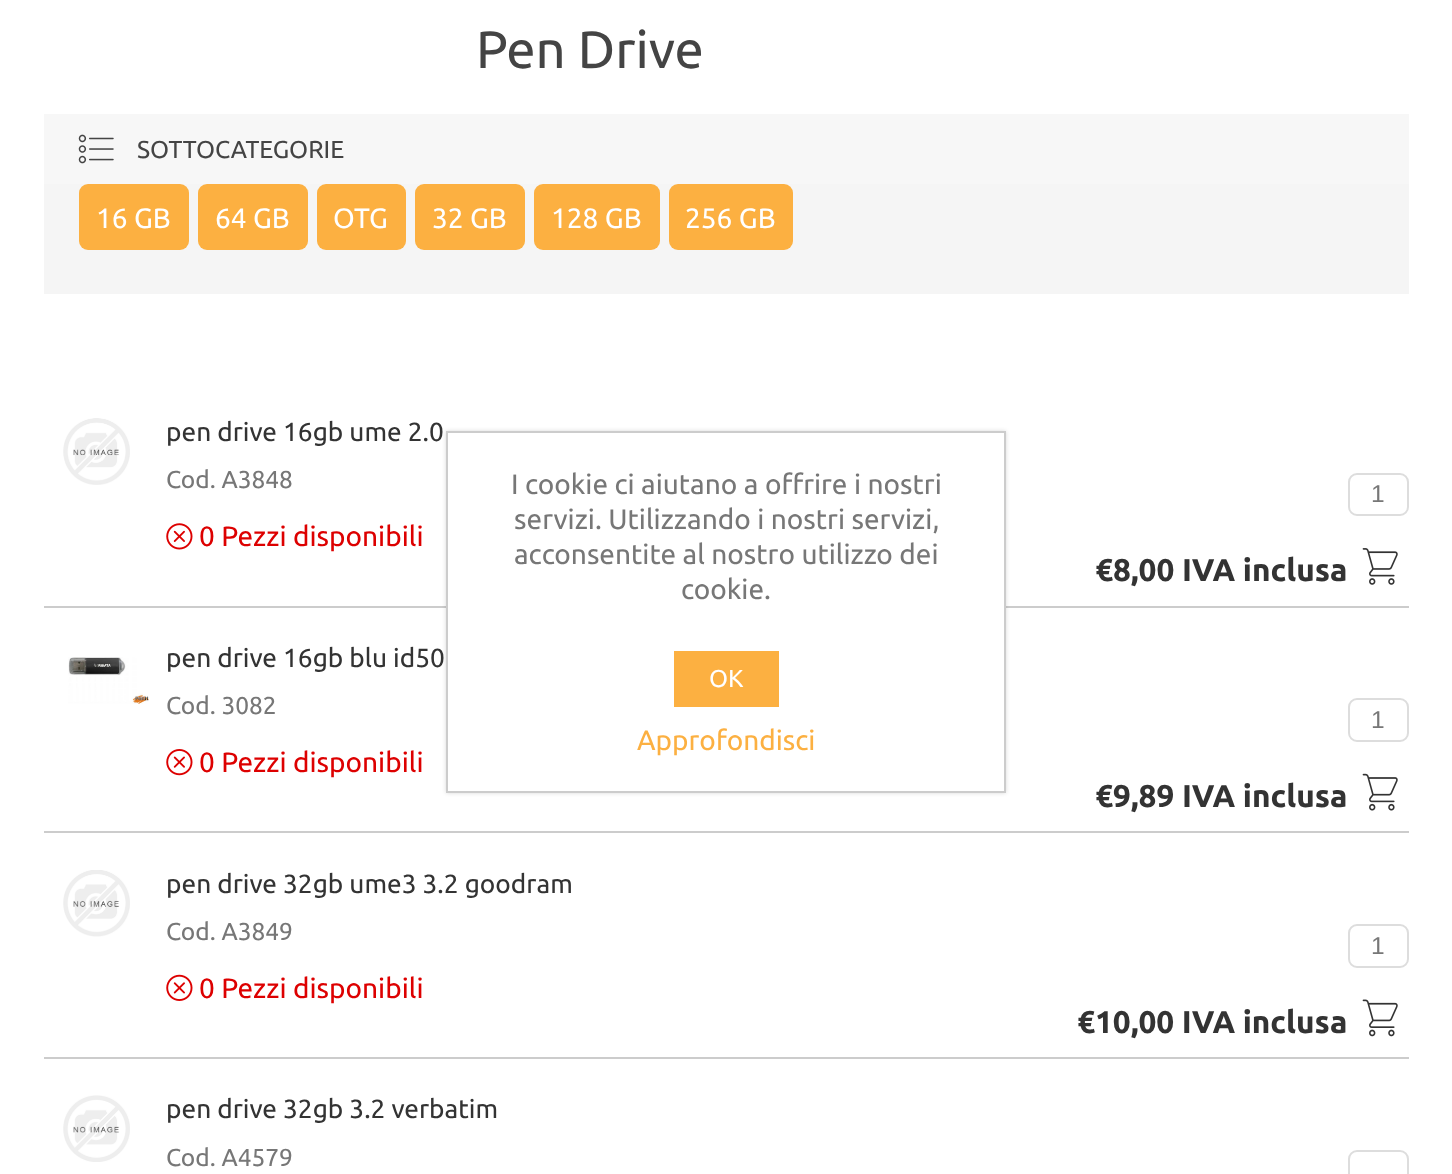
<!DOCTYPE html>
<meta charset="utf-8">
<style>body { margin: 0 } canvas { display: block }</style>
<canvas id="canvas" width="1452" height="1174"></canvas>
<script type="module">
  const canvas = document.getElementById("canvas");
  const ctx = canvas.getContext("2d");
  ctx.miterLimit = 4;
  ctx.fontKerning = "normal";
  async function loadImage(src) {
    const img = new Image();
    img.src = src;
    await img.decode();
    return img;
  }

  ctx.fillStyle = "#ffffff";
  ctx.fillRect(0, 0, 1452, 1174);
  ctx.font = "52.5px Ubuntu";
  ctx.fillStyle = "#444444";
  ctx.fillText("Pen Drive", 476, 68);
  ctx.fillStyle = "#f7f7f7";
  ctx.fillRect(44, 114, 1365, 70);
  ctx.drawImage(await loadImage("img1.png"), 78, 134, 36, 30);
  ctx.font = "24.5px Ubuntu";
  ctx.fillStyle = "#444444";
  ctx.fillText("SOTTOCATEGORIE", 137, 158);
  ctx.fillStyle = "#f5f5f5";
  ctx.fillRect(44, 184, 1365, 110);
  ctx.fillStyle = "#fcb041";
  ctx.beginPath();
  ctx.roundRect(79, 184, 110, 66, 9);
  ctx.fill();
  ctx.font = "28px Ubuntu";
  ctx.fillStyle = "#ffffff";
  ctx.fillText("16 GB", 96, 228);
  ctx.fillStyle = "#fcb041";
  ctx.beginPath();
  ctx.roundRect(198, 184, 110, 66, 9);
  ctx.fill();
  ctx.fillStyle = "#ffffff";
  ctx.fillText("64 GB", 215, 228);
  ctx.fillStyle = "#fcb041";
  ctx.beginPath();
  ctx.roundRect(317, 184, 89, 66, 9);
  ctx.fill();
  ctx.fillStyle = "#ffffff";
  ctx.fillText("OTG", 333, 228);
  ctx.fillStyle = "#fcb041";
  ctx.beginPath();
  ctx.roundRect(415, 184, 110, 66, 9);
  ctx.fill();
  ctx.fillStyle = "#ffffff";
  ctx.fillText("32 GB", 432, 228);
  ctx.fillStyle = "#fcb041";
  ctx.beginPath();
  ctx.roundRect(534, 184, 126, 66, 9);
  ctx.fill();
  ctx.fillStyle = "#ffffff";
  ctx.fillText("128 GB", 551, 228);
  ctx.fillStyle = "#fcb041";
  ctx.beginPath();
  ctx.roundRect(669, 184, 124, 66, 9);
  ctx.fill();
  ctx.fillStyle = "#ffffff";
  ctx.fillText("256 GB", 685, 228);
  ctx.fillStyle = "#cccccc";
  ctx.fillRect(44, 606, 1365, 2);
  ctx.drawImage(await loadImage("img2.png"), 63, 418, 67, 67);
  ctx.font = "26.25px Ubuntu";
  ctx.fillStyle = "#333333";
  ctx.fillText("pen drive 16gb ume 2.0", 166, 441);
  ctx.font = "24.5px Ubuntu";
  ctx.fillStyle = "#777777";
  ctx.fillText("Cod. A3848", 166, 488);
  ctx.drawImage(await loadImage("img3.png"), 166, 523, 27, 27);
  ctx.font = "28px Ubuntu";
  ctx.fillStyle = "#dd0000";
  ctx.fillText("0 Pezzi disponibili", 199, 546);
  ctx.beginPath();
  ctx.roundRect(1349, 474, 59, 41, 8);
  ctx.strokeStyle = "#dddddd";
  ctx.lineWidth = 2;
  ctx.stroke();
  ctx.font = "24.5px Liberation Sans";
  ctx.fillStyle = "#777777";
  ctx.fillText("1", 1371, 502);
  ctx.font = "bold 31.5px Ubuntu";
  ctx.fillStyle = "#333333";
  ctx.fillText("€8,00 IVA inclusa", 1095, 581);
  ctx.drawImage(await loadImage("img4.png"), 1362, 548, 36, 37);
  ctx.fillStyle = "#cccccc";
  ctx.fillRect(44, 831, 1365, 2);
  ctx.drawImage(await loadImage("img5.png"), 68, 657, 81, 47);
  ctx.font = "26.25px Ubuntu";
  ctx.fillStyle = "#333333";
  ctx.fillText("pen drive 16gb blu id50", 166, 667);
  ctx.font = "24.5px Ubuntu";
  ctx.fillStyle = "#777777";
  ctx.fillText("Cod. 3082", 166, 714);
  ctx.drawImage(await loadImage("img6.png"), 166, 749, 27, 27);
  ctx.font = "28px Ubuntu";
  ctx.fillStyle = "#dd0000";
  ctx.fillText("0 Pezzi disponibili", 199, 772);
  ctx.beginPath();
  ctx.roundRect(1349, 699, 59, 42, 8);
  ctx.stroke();
  ctx.font = "24.5px Liberation Sans";
  ctx.fillStyle = "#777777";
  ctx.fillText("1", 1371, 728);
  ctx.font = "bold 31.5px Ubuntu";
  ctx.fillStyle = "#333333";
  ctx.fillText("€9,89 IVA inclusa", 1095, 807);
  ctx.drawImage(await loadImage("img7.png"), 1362, 773, 36, 38);
  ctx.fillStyle = "#cccccc";
  ctx.fillRect(44, 1057, 1365, 2);
  ctx.drawImage(await loadImage("img8.png"), 63, 870, 67, 67);
  ctx.font = "26.25px Ubuntu";
  ctx.fillStyle = "#333333";
  ctx.fillText("pen drive 32gb ume3 3.2 goodram", 166, 893);
  ctx.font = "24.5px Ubuntu";
  ctx.fillStyle = "#777777";
  ctx.fillText("Cod. A3849", 166, 940);
  ctx.drawImage(await loadImage("img9.png"), 166, 974, 27, 27);
  ctx.font = "28px Ubuntu";
  ctx.fillStyle = "#dd0000";
  ctx.fillText("0 Pezzi disponibili", 199, 998);
  ctx.beginPath();
  ctx.roundRect(1349, 925, 59, 42, 8);
  ctx.stroke();
  ctx.font = "24.5px Liberation Sans";
  ctx.fillStyle = "#777777";
  ctx.fillText("1", 1371, 954);
  ctx.font = "bold 31.5px Ubuntu";
  ctx.fillStyle = "#333333";
  ctx.fillText("€10,00 IVA inclusa", 1077, 1033);
  ctx.drawImage(await loadImage("img10.png"), 1362, 999, 36, 38);
  ctx.drawImage(await loadImage("img11.png"), 63, 1095, 67, 67);
  ctx.font = "26.25px Ubuntu";
  ctx.fillText("pen drive 32gb 3.2 verbatim", 166, 1118);
  ctx.font = "24.5px Ubuntu";
  ctx.fillStyle = "#777777";
  ctx.fillText("Cod. A4579", 166, 1166);
  ctx.beginPath();
  ctx.roundRect(1349, 1151, 59, 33, 8);
  ctx.stroke();
  ctx.fillStyle = "rgba(0, 0, 0, 0.15)";
  ctx.filter = "blur(2px)";
  ctx.beginPath();
  ctx.rect(446, 431, 560, 362);
  ctx.fill();
  ctx.filter = "none";
  ctx.fillStyle = "#ffffff";
  ctx.beginPath();
  ctx.rect(447, 432, 558, 360);
  ctx.fill();
  ctx.strokeStyle = "#cccccc";
  ctx.stroke();
  ctx.font = "28px Ubuntu";
  ctx.fillStyle = "#777777";
  ctx.fillText("I cookie ci aiutano a offrire i nostri", 511, 494);
  ctx.fillText("servizi. Utilizzando i nostri servizi,", 514, 529);
  ctx.fillText("acconsentite al nostro utilizzo dei", 514, 564);
  ctx.fillText("cookie.", 681, 599);
  ctx.fillStyle = "#fcb041";
  ctx.fillRect(674, 651, 105, 56);
  ctx.font = "24.5px Ubuntu";
  ctx.fillStyle = "#ffffff";
  ctx.fillText("OK", 709, 687);
  ctx.font = "28px Ubuntu";
  ctx.fillStyle = "#fcb041";
  ctx.fillText("Approfondisci", 637, 750);
</script>
